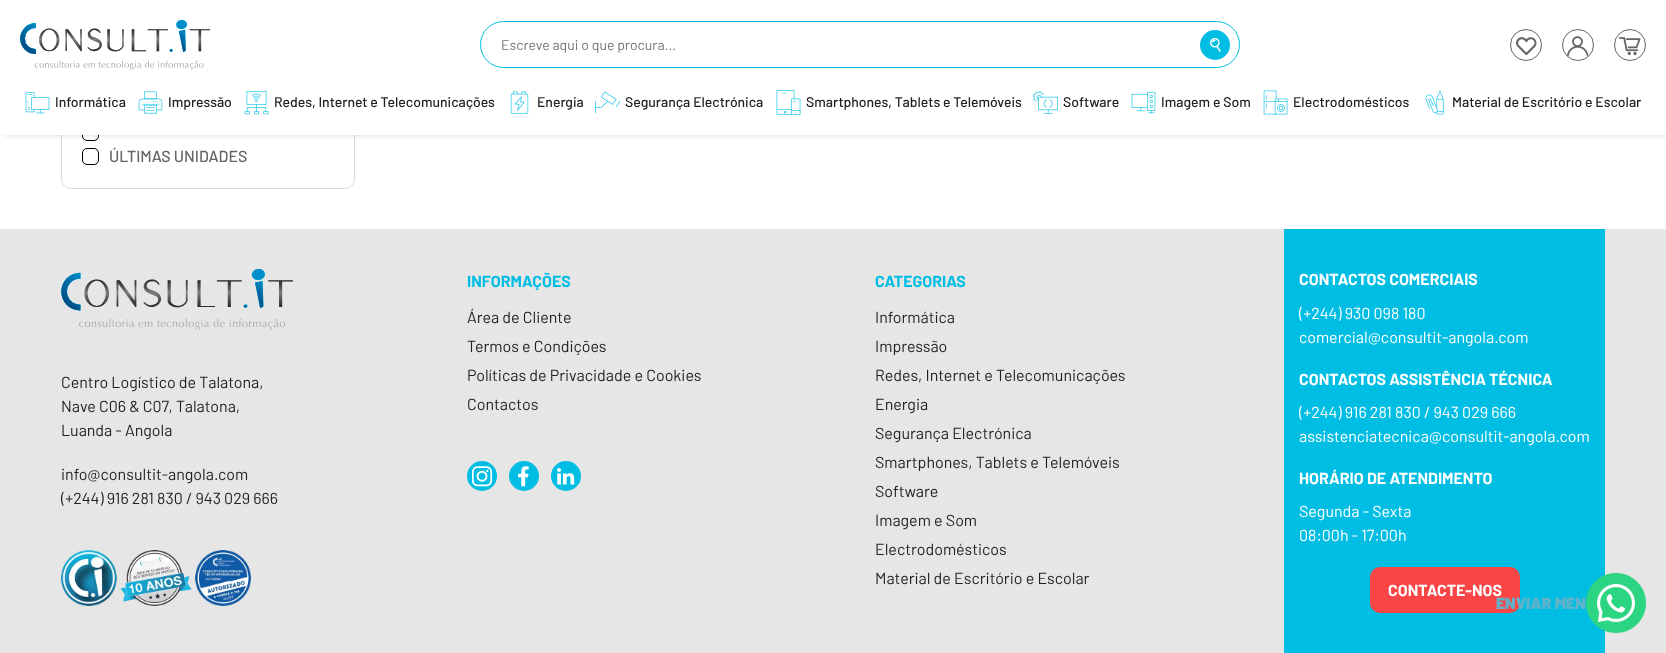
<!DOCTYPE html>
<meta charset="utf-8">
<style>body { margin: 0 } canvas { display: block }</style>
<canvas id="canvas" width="1666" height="653"></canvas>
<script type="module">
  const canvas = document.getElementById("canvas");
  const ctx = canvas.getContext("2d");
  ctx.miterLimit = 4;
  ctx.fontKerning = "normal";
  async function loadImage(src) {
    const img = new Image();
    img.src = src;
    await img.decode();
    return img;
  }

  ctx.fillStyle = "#ffffff";
  ctx.fillRect(0, 0, 1666, 653);
  ctx.beginPath();
  ctx.roundRect(61.5, -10.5, 293, 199, 9.5);
  ctx.strokeStyle = "#d9d9d9";
  ctx.stroke();
  ctx.beginPath();
  ctx.roundRect(82.5, 124.5, 16, 16, 4.5);
  ctx.strokeStyle = "#000000";
  ctx.stroke();
  ctx.fillStyle = "rgba(0, 0, 0, 0.15)";
  ctx.filter = "blur(2.5px)";
  ctx.beginPath();
  ctx.rect(5, 0, 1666, 135);
  ctx.fill();
  ctx.filter = "none";
  ctx.fillStyle = "#ffffff";
  ctx.fillRect(1, 0, 1665, 135);
  ctx.drawImage(await loadImage("img1.png"), 20, 20, 190, 50);
  ctx.beginPath();
  ctx.roundRect(480.5, 21.5, 759, 46, 23);
  ctx.strokeStyle = "#00bee3";
  ctx.stroke();
  ctx.font = "14px Barlow";
  ctx.fillStyle = "#757575";
  ctx.fillText("Escreve aqui o que procura...", 501, 50);
  ctx.fillStyle = "#00bee3";
  ctx.beginPath();
  ctx.arc(1215, 45, 15, 0, Math.PI * 2);
  ctx.fill();
  ctx.drawImage(await loadImage("img2.png"), 1210, 37, 11, 15);
  ctx.beginPath();
  ctx.arc(1526, 45, 15.5, 0, Math.PI * 2);
  ctx.strokeStyle = "#666666";
  ctx.stroke();
  ctx.drawImage(await loadImage("img3.png"), 1516, 37, 21, 19);
  ctx.beginPath();
  ctx.arc(1578, 45, 15.5, 0, Math.PI * 2);
  ctx.stroke();
  ctx.drawImage(await loadImage("img4.png"), 1567, 36, 22, 21);
  ctx.beginPath();
  ctx.arc(1630, 45, 15.5, 0, Math.PI * 2);
  ctx.stroke();
  ctx.drawImage(await loadImage("img5.png"), 1619, 37, 22, 19);
  ctx.drawImage(await loadImage("img6.png"), 25, 92, 25, 22);
  ctx.font = "500 14px Barlow";
  ctx.fillStyle = "#231f20";
  ctx.fillText("Informática", 55, 107);
  ctx.drawImage(await loadImage("img7.png"), 138, 91, 25, 23);
  ctx.fillText("Impressão", 168, 107);
  ctx.drawImage(await loadImage("img8.png"), 244, 90, 25, 25);
  ctx.fillText("Redes, Internet e Telecomunicações", 274, 107);
  ctx.drawImage(await loadImage("img9.png"), 510, 91, 19, 23);
  ctx.fillText("Energia", 537, 107);
  ctx.drawImage(await loadImage("img10.png"), 595, 91, 25, 23);
  ctx.fillText("Segurança Electrónica", 625, 107);
  ctx.drawImage(await loadImage("img11.png"), 776, 90, 25, 25);
  ctx.fillText("Smartphones, Tablets e Telemóveis", 806, 107);
  ctx.drawImage(await loadImage("img12.png"), 1033, 91, 25, 23);
  ctx.fillText("Software", 1063, 107);
  ctx.drawImage(await loadImage("img13.png"), 1131, 91, 25, 23);
  ctx.fillText("Imagem e Som", 1161, 107);
  ctx.drawImage(await loadImage("img14.png"), 1263, 90, 25, 25);
  ctx.fillText("Electrodomésticos", 1293, 107);
  ctx.drawImage(await loadImage("img15.png"), 1425, 90, 19, 25);
  ctx.fillText("Material de Escritório e Escolar", 1452, 107);
  ctx.beginPath();
  ctx.roundRect(82.5, 148.5, 16, 16, 4.5);
  ctx.strokeStyle = "#000000";
  ctx.stroke();
  ctx.font = "500 16px Barlow";
  ctx.fillStyle = "#666666";
  ctx.fillText("ÚLTIMAS UNIDADES", 109, 162);
  ctx.fillStyle = "#e6e6e6";
  ctx.fillRect(0, 229, 1666, 424);
  ctx.drawImage(await loadImage("img16.png"), 61, 269, 232, 61);
  ctx.font = "16px Barlow";
  ctx.fillStyle = "#231f20";
  ctx.fillText("Centro Logístico de Talatona,", 61, 388);
  ctx.fillText("Nave C06 & C07, Talatona,", 61, 412);
  ctx.fillText("Luanda - Angola", 61, 436);
  ctx.fillText("info@consultit-angola.com", 61, 480);
  ctx.fillText("(+244) 916 281 830 / 943 029 666", 61, 504);
  ctx.drawImage(await loadImage("img17.png"), 61, 550, 190, 56);
  ctx.font = "bold 16px Barlow";
  ctx.fillStyle = "#00bee3";
  ctx.fillText("INFORMAÇÕES", 467, 287);
  ctx.font = "16px Barlow";
  ctx.fillStyle = "#231f20";
  ctx.fillText("Área de Cliente", 467, 323);
  ctx.fillText("Termos e Condições", 467, 352);
  ctx.fillText("Políticas de Privacidade e Cookies", 467, 381);
  ctx.fillText("Contactos", 467, 410);
  ctx.fillStyle = "#00bee3";
  ctx.beginPath();
  ctx.arc(482, 476, 15, 0, Math.PI * 2);
  ctx.fill();
  ctx.drawImage(await loadImage("img18.png"), 472, 466, 21, 21);
  ctx.beginPath();
  ctx.arc(524, 476, 15, 0, Math.PI * 2);
  ctx.fill();
  ctx.drawImage(await loadImage("img19.png"), 518, 466, 11, 21);
  ctx.beginPath();
  ctx.arc(566, 476, 15, 0, Math.PI * 2);
  ctx.fill();
  ctx.drawImage(await loadImage("img20.png"), 557, 468, 18, 17);
  ctx.font = "bold 16px Barlow";
  ctx.fillText("CATEGORIAS", 875, 287);
  ctx.font = "16px Barlow";
  ctx.fillStyle = "#231f20";
  ctx.fillText("Informática", 875, 323);
  ctx.fillText("Impressão", 875, 352);
  ctx.fillText("Redes, Internet e Telecomunicações", 875, 381);
  ctx.fillText("Energia", 875, 410);
  ctx.fillText("Segurança Electrónica", 875, 439);
  ctx.fillText("Smartphones, Tablets e Telemóveis", 875, 468);
  ctx.fillText("Software", 875, 497);
  ctx.fillText("Imagem e Som", 875, 526);
  ctx.fillText("Electrodomésticos", 875, 555);
  ctx.fillText("Material de Escritório e Escolar", 875, 584);
  ctx.fillStyle = "#00bee3";
  ctx.fillRect(1284, 229, 321, 424);
  ctx.font = "bold 16px Barlow";
  ctx.fillStyle = "#ffffff";
  ctx.fillText("CONTACTOS COMERCIAIS", 1299, 285);
  ctx.font = "16px Barlow";
  ctx.fillText("(+244) 930 098 180", 1299, 319);
  ctx.fillText("comercial@consultit-angola.com", 1299, 343);
  ctx.font = "bold 16px Barlow";
  ctx.fillText("CONTACTOS ASSISTÊNCIA TÉCNICA", 1299, 385);
  ctx.font = "16px Barlow";
  ctx.fillText("(+244) 916 281 830 / 943 029 666", 1299, 418);
  ctx.fillText("assistenciatecnica@consultit-angola.com", 1299, 442);
  ctx.font = "bold 16px Barlow";
  ctx.fillText("HORÁRIO DE ATENDIMENTO", 1299, 484);
  ctx.font = "16px Barlow";
  ctx.fillText("Segunda - Sexta", 1299, 517);
  ctx.fillText("08:00h - 17:00h", 1299, 541);
  ctx.fillStyle = "#f94546";
  ctx.beginPath();
  ctx.roundRect(1370, 567, 150, 46, 10);
  ctx.fill();
  ctx.font = "bold 16px Barlow";
  ctx.fillStyle = "#ffffff";
  ctx.fillText("CONTACTE-NOS", 1388, 596);
  ctx.font = "900 16px Barlow";
  ctx.fillStyle = "#61b2c8";
  ctx.fillText("ENVIAR MEN", 1496, 609);
  ctx.drawImage(await loadImage("img21.png"), 1586, 573, 60, 60);
</script>
